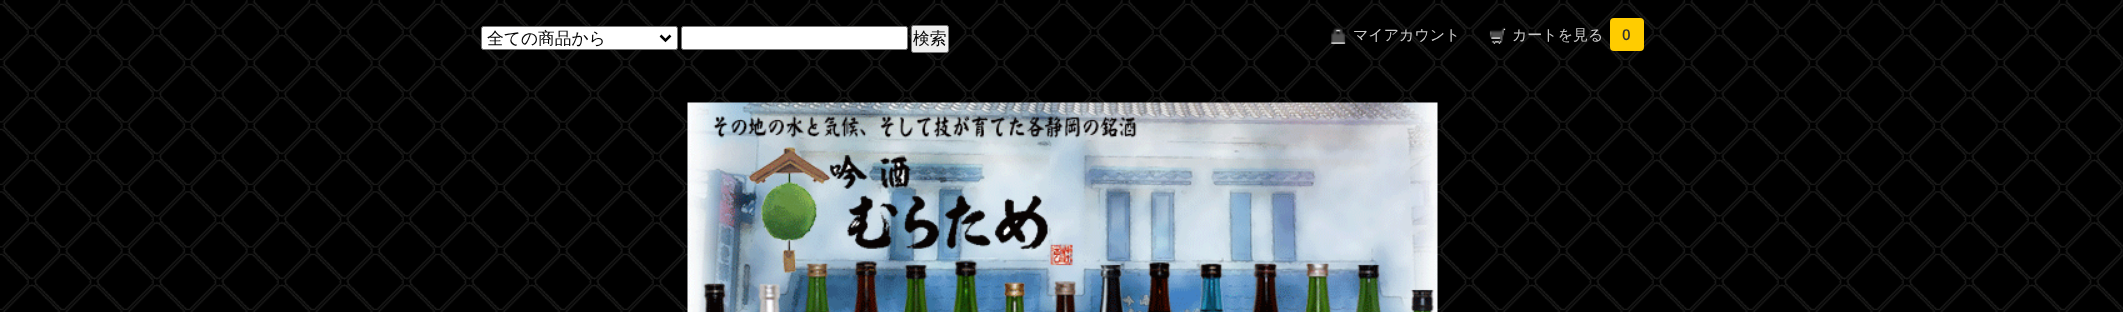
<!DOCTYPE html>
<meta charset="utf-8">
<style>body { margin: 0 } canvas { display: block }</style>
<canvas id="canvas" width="2123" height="312"></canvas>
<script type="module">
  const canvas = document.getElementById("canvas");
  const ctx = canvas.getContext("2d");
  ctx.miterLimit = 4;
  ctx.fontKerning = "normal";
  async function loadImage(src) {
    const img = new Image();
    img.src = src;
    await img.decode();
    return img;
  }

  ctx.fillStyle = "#ffffff";
  ctx.fillRect(0, 0, 2123, 312);
  ctx.drawImage(await loadImage("img1.png"), 0, 0, 2123, 312);
  ctx.beginPath();
  ctx.roundRect(481.5, 26.5, 196, 23, 2);
  ctx.fill();
  ctx.strokeStyle = "#767676";
  ctx.stroke();
  ctx.beginPath();
  ctx.moveTo(660.5, 35.5);
  ctx.lineTo(665.5, 40.5);
  ctx.lineTo(670.5, 35.5);
  ctx.strokeStyle = "#000000";
  ctx.lineWidth = 2.5;
  ctx.stroke();
  ctx.font = "500 16.75px WenQuanYi Zen Hei";
  ctx.fillStyle = "#000000";
  ctx.fillText("全ての商品から", 487, 44);
  ctx.fillStyle = "#ffffff";
  ctx.beginPath();
  ctx.roundRect(681.5, 26.5, 226, 23, 2);
  ctx.fill();
  ctx.strokeStyle = "#767676";
  ctx.lineWidth = 1;
  ctx.stroke();
  ctx.fillStyle = "#efefef";
  ctx.beginPath();
  ctx.roundRect(911.5, 25.5, 37, 27, 2);
  ctx.fill();
  ctx.stroke();
  ctx.fillStyle = "#000000";
  ctx.fillText("検索", 913, 44);
  ctx.drawImage(await loadImage("img2.png"), 1331, 27, 15, 17);
  ctx.font = "500 15px WenQuanYi Zen Hei";
  ctx.fillStyle = "#cccccc";
  ctx.fillText("マイアカウント", 1353, 40);
  ctx.drawImage(await loadImage("img3.png"), 1489, 27, 17, 17);
  ctx.fillText("カートを見る", 1512, 40);
  ctx.fillStyle = "#ffcc00";
  ctx.beginPath();
  ctx.roundRect(1610, 18, 34, 33, 4);
  ctx.fill();
  ctx.font = "600 15px Open Sans";
  ctx.fillStyle = "#333333";
  ctx.fillText("0", 1622, 40);
  ctx.drawImage(await loadImage("img4.png"), 687, 102, 751, 210);
</script>
